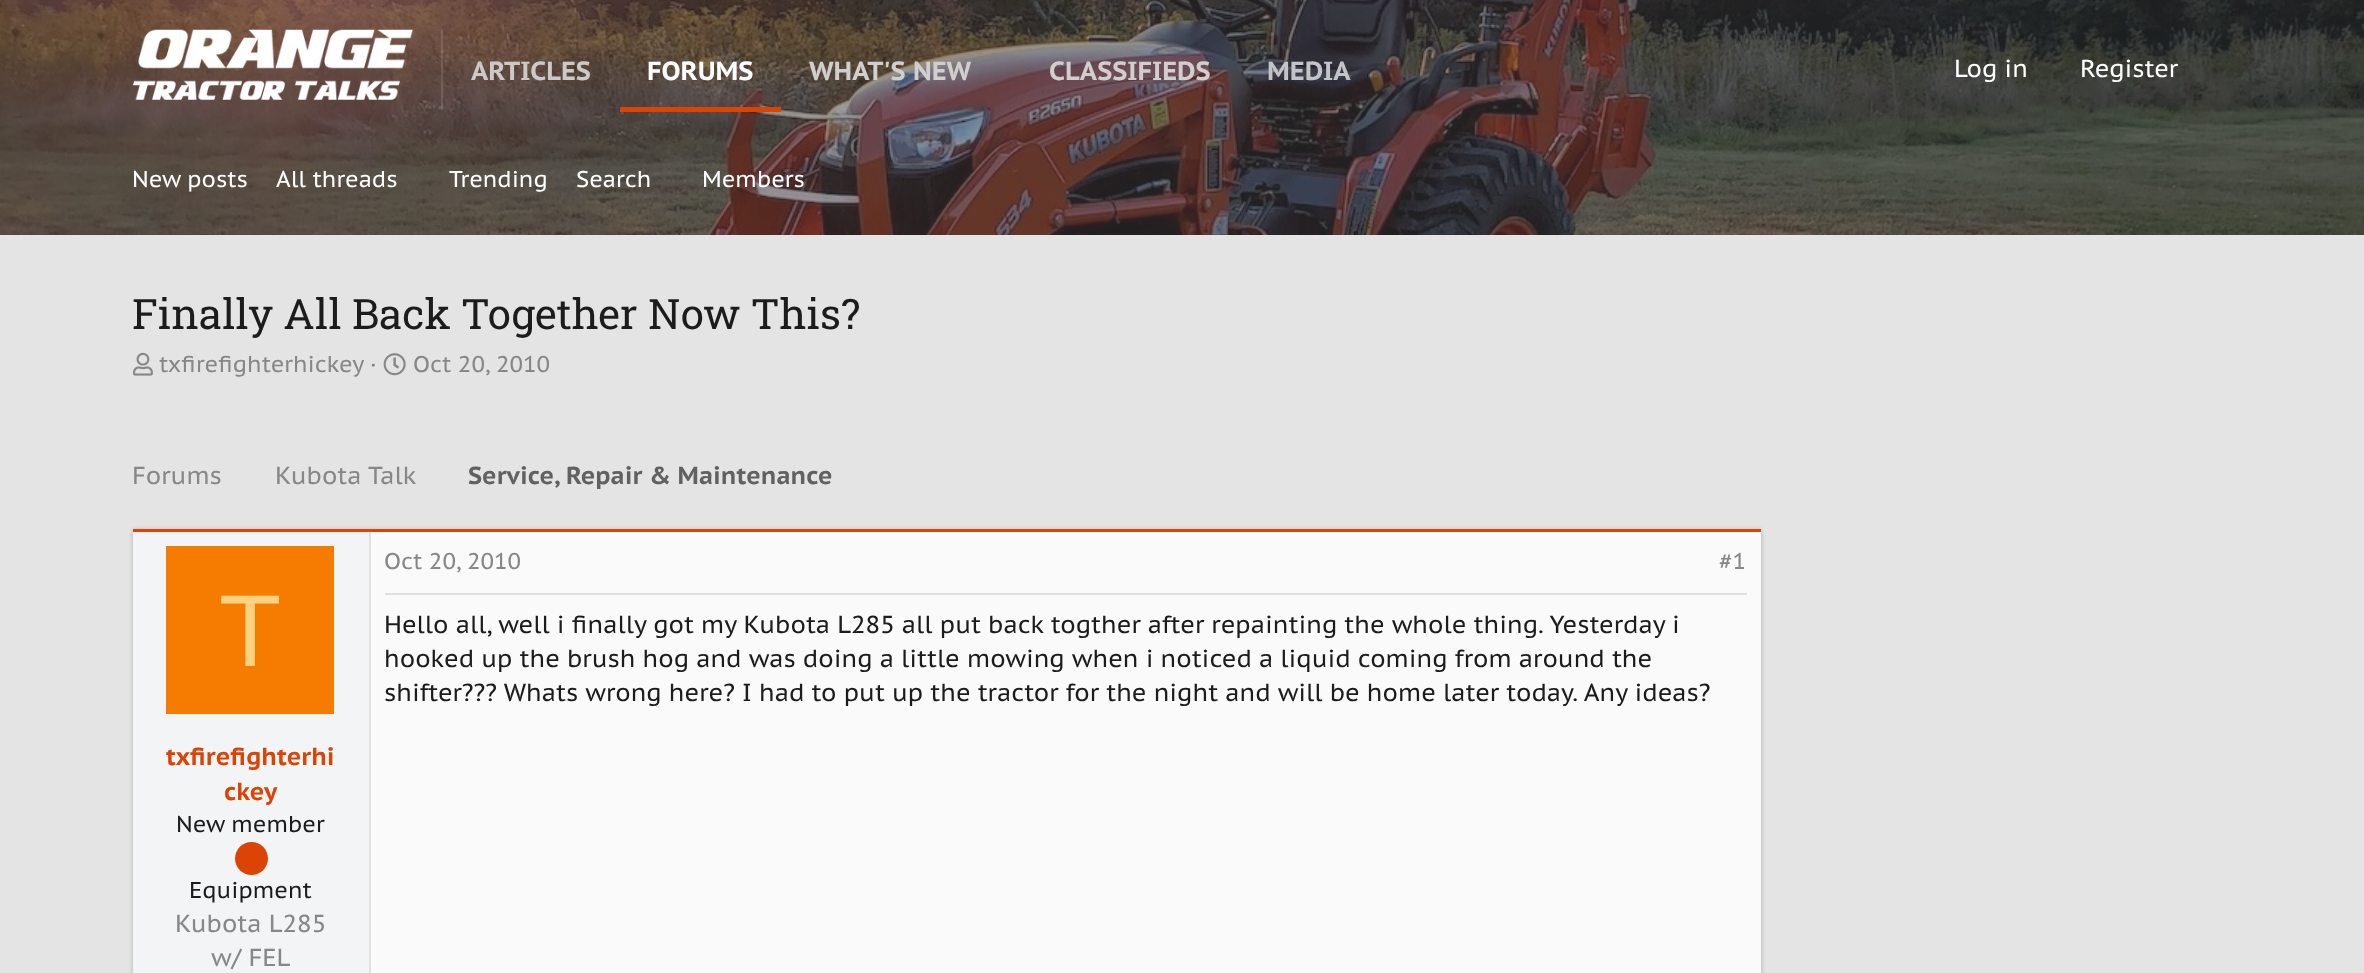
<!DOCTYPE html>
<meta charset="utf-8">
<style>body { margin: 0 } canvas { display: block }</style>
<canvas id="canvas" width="2364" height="973"></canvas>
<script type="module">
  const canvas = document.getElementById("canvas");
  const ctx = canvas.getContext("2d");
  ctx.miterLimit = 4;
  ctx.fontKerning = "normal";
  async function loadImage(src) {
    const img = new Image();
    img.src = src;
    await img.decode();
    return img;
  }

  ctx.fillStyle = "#e4e4e4";
  ctx.fillRect(0, 0, 2364, 973);
  ctx.drawImage(await loadImage("img1.png"), 0, 0, 2364, 235);
  ctx.fillStyle = "rgba(255, 255, 255, 0.12)";
  ctx.fillRect(441, 30, 2, 80);
  ctx.drawImage(await loadImage("img2.png"), 133, 29, 280, 71);
  ctx.font = "bold 26.25px PT Sans Caption";
  ctx.fillStyle = "#cec9c6";
  ctx.fillText("ARTICLES", 471, 80);
  ctx.fillStyle = "#dc4405";
  ctx.fillRect(620, 107, 161, 5);
  ctx.fillStyle = "#ffffff";
  ctx.fillText("FORUMS", 647, 80);
  ctx.fillStyle = "#d1cecd";
  ctx.fillText("WHAT'S NEW", 809, 80);
  ctx.fillText("CLASSIFIEDS", 1049, 80);
  ctx.fillStyle = "#c3c4c7";
  ctx.fillText("MEDIA", 1267, 80);
  ctx.font = "24.5px PT Sans Caption";
  ctx.fillStyle = "#ffffff";
  ctx.fillText("Log in", 1954, 77);
  ctx.fillText("Register", 2080, 77);
  ctx.font = "22.75px PT Sans Caption";
  ctx.fillText("New posts", 132, 187);
  ctx.fillText("All threads", 276, 187);
  ctx.fillText("Trending", 449, 187);
  ctx.fillText("Search", 576, 187);
  ctx.fillText("Members", 702, 187);
  ctx.font = "42px Roboto Slab";
  ctx.fillStyle = "#1c1c1c";
  ctx.fillText("Finally All Back Together Now This?", 132, 329);
  ctx.drawImage(await loadImage("img3.png"), 133, 352, 20, 24);
  ctx.font = "22.75px PT Sans Caption";
  ctx.fillStyle = "#878787";
  ctx.fillText("txfirefighterhickey ·", 159, 372);
  ctx.drawImage(await loadImage("img4.png"), 383, 353, 23, 23);
  ctx.fillText("Oct 20, 2010", 413, 372);
  ctx.font = "24.5px PT Sans Caption";
  ctx.fillText("Forums", 132, 484);
  ctx.fillText("Kubota Talk", 275, 484);
  ctx.font = "bold 24.5px PT Sans Caption";
  ctx.fillStyle = "#616161";
  ctx.fillText("Service, Repair & Maintenance", 468, 484);
  ctx.fillStyle = "rgba(0, 0, 0, 0.1)";
  ctx.filter = "blur(2.5px)";
  ctx.beginPath();
  ctx.rect(133, 530, 1628, 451);
  ctx.fill();
  ctx.filter = "none";
  ctx.fillStyle = "rgba(0, 0, 0, 0.06)";
  ctx.filter = "blur(2px)";
  ctx.beginPath();
  ctx.rect(133, 532, 1628, 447);
  ctx.fill();
  ctx.filter = "none";
  ctx.fillStyle = "rgba(0, 0, 0, 0.07)";
  ctx.filter = "blur(2px)";
  ctx.beginPath();
  ctx.rect(133, 529, 1628, 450);
  ctx.fill();
  ctx.filter = "none";
  ctx.fillStyle = "#dc4405";
  ctx.fillRect(133, 529, 1628, 3);
  ctx.fillStyle = "#f3f4f5";
  ctx.fillRect(133, 532, 236, 441);
  ctx.fillStyle = "#e0e0e0";
  ctx.fillRect(369, 532, 2, 441);
  ctx.fillStyle = "#f57c00";
  ctx.fillRect(166, 546, 168, 168);
  ctx.font = "102px Liberation Sans";
  ctx.fillStyle = "#ffd180";
  ctx.fillText("T", 219, 666);
  ctx.font = "bold 24.5px PT Sans Caption";
  ctx.fillStyle = "#dc4405";
  ctx.fillText("txfirefighterhi", 166, 765);
  ctx.fillText("ckey", 224, 800);
  ctx.font = "22.75px PT Sans Caption";
  ctx.fillStyle = "#1c1c1c";
  ctx.fillText("New member", 176, 832);
  ctx.fillStyle = "#dc4405";
  ctx.beginPath();
  ctx.arc(251.5, 858.5, 16.5, 0, Math.PI * 2);
  ctx.fill();
  ctx.fillStyle = "#1c1c1c";
  ctx.fillText("Equipment", 189, 898);
  ctx.font = "24.5px PT Sans Caption";
  ctx.fillStyle = "#878787";
  ctx.fillText("Kubota L285", 175, 932);
  ctx.fillText("w/ FEL", 211, 966);
  ctx.fillStyle = "#fafafa";
  ctx.fillRect(371, 532, 1390, 441);
  ctx.fillStyle = "#e0e0e0";
  ctx.fillRect(385, 593, 1362, 2);
  ctx.font = "22.75px PT Sans Caption";
  ctx.fillStyle = "#878787";
  ctx.fillText("Oct 20, 2010", 384, 569);
  ctx.fillText("#1", 1719, 569);
  ctx.font = "24.5px PT Sans Caption";
  ctx.fillStyle = "#1c1c1c";
  ctx.fillText("Hello all, well i finally got my Kubota L285 all put back togther after repainting the whole thing. Yesterday i", 384, 633);
  ctx.fillText("hooked up the brush hog and was doing a little mowing when i noticed a liquid coming from around the", 384, 667);
  ctx.fillText("shifter??? Whats wrong here? I had to put up the tractor for the night and will be home later today. Any ideas?", 384, 701);
</script>
